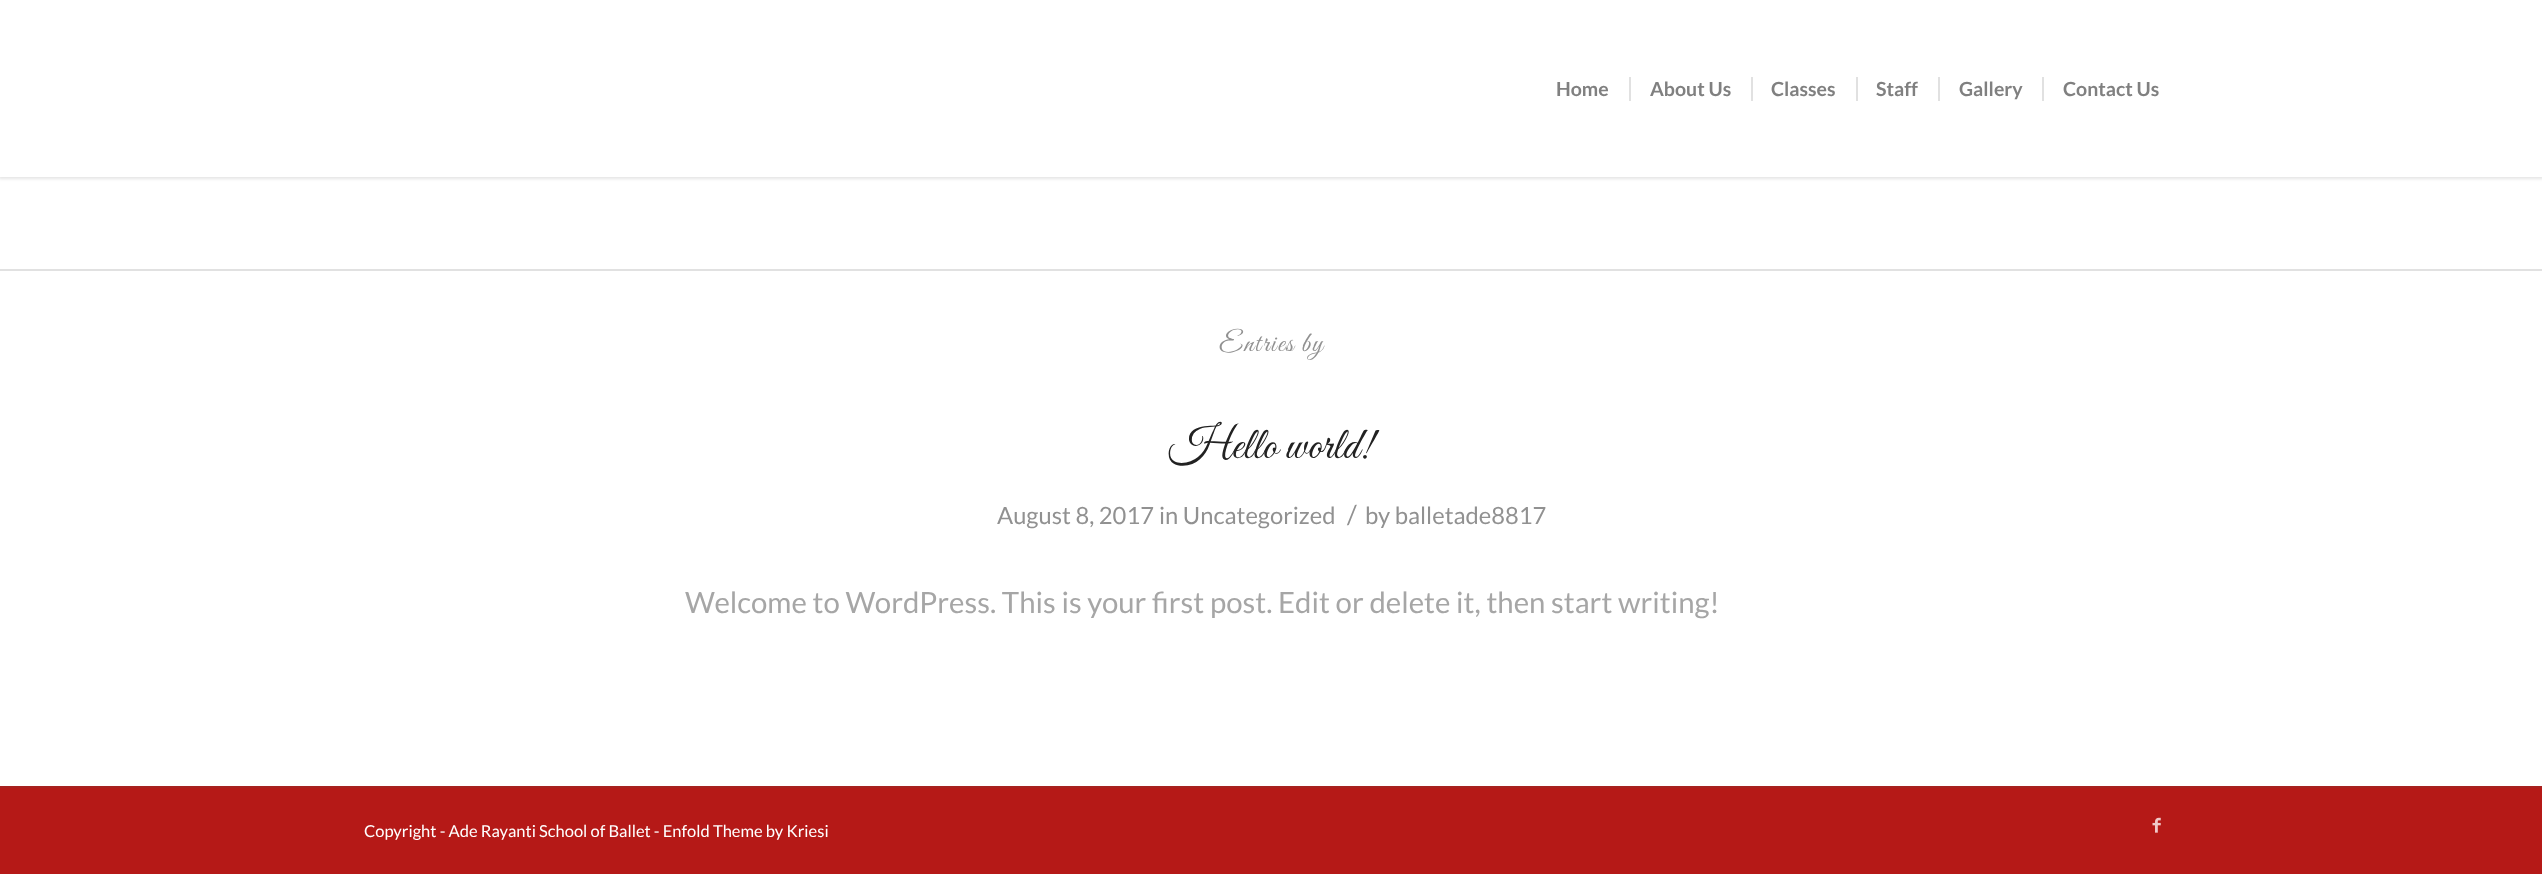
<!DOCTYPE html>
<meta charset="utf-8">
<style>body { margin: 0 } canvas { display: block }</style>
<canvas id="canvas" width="2542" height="874"></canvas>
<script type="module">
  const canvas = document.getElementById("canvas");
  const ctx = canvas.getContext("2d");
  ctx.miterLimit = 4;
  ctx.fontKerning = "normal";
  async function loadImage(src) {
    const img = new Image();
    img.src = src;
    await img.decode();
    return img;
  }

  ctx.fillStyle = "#ffffff";
  ctx.fillRect(0, 0, 2542, 874);
  ctx.fillStyle = "rgba(0, 0, 0, 0.1)";
  ctx.filter = "blur(1.5px)";
  ctx.beginPath();
  ctx.rect(-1, -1, 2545, 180);
  ctx.fill();
  ctx.filter = "none";
  ctx.fillStyle = "#ffffff";
  ctx.fillRect(0, 0, 2542, 177);
  ctx.font = "bold 19.5px Lato";
  ctx.fillStyle = "#808080";
  ctx.fillText("Home", 1556, 96);
  ctx.fillText("About Us", 1650, 96);
  ctx.fillStyle = "#e1e1e1";
  ctx.fillRect(1629, 77, 2, 24);
  ctx.fillStyle = "#808080";
  ctx.fillText("Classes", 1771, 96);
  ctx.fillStyle = "#e1e1e1";
  ctx.fillRect(1751, 77, 2, 24);
  ctx.fillStyle = "#808080";
  ctx.fillText("Staff", 1876, 96);
  ctx.fillStyle = "#e1e1e1";
  ctx.fillRect(1856, 77, 2, 24);
  ctx.fillStyle = "#808080";
  ctx.fillText("Gallery", 1959, 96);
  ctx.fillStyle = "#e1e1e1";
  ctx.fillRect(1938, 77, 2, 24);
  ctx.fillStyle = "#808080";
  ctx.fillText("Contact Us", 2063, 96);
  ctx.fillStyle = "#e1e1e1";
  ctx.fillRect(2042, 77, 2, 24);
  ctx.fillRect(0, 269, 2542, 2);
  ctx.letterSpacing = "1.5px";
  ctx.font = "28px Great Vibes";
  ctx.fillStyle = "#919191";
  ctx.fillText("Entries by", 1219, 351);
  ctx.letterSpacing = "0px";
  ctx.font = "45px Great Vibes";
  ctx.fillStyle = "#222222";
  ctx.fillText("Hello world!", 1169, 458);
  ctx.font = "23.75px Lato";
  ctx.fillStyle = "#919191";
  ctx.fillText("August 8, 2017", 997, 524);
  ctx.fillText("in Uncategorized", 1159, 524);
  ctx.font = "26px Lato";
  ctx.fillText("/", 1347, 524);
  ctx.font = "23.75px Lato";
  ctx.fillText("by balletade8817", 1365, 524);
  ctx.font = "29.35px Lato";
  ctx.fillStyle = "#a6a6a6";
  ctx.fillText("Welcome to WordPress. This is your first post. Edit or delete it, then start writing!", 685, 613);
  ctx.fillStyle = "#b51917";
  ctx.fillRect(0, 788, 2542, 86);
  ctx.fillStyle = "#a6211f";
  ctx.fillRect(0, 786, 2542, 2);
  ctx.font = "16.5px Lato";
  ctx.fillStyle = "#ffffff";
  ctx.fillText("Copyright - Ade Rayanti School of Ballet - Enfold Theme by Kriesi", 364, 837);
  ctx.drawImage(await loadImage("img1.png"), 2152, 817, 9, 16);
</script>
